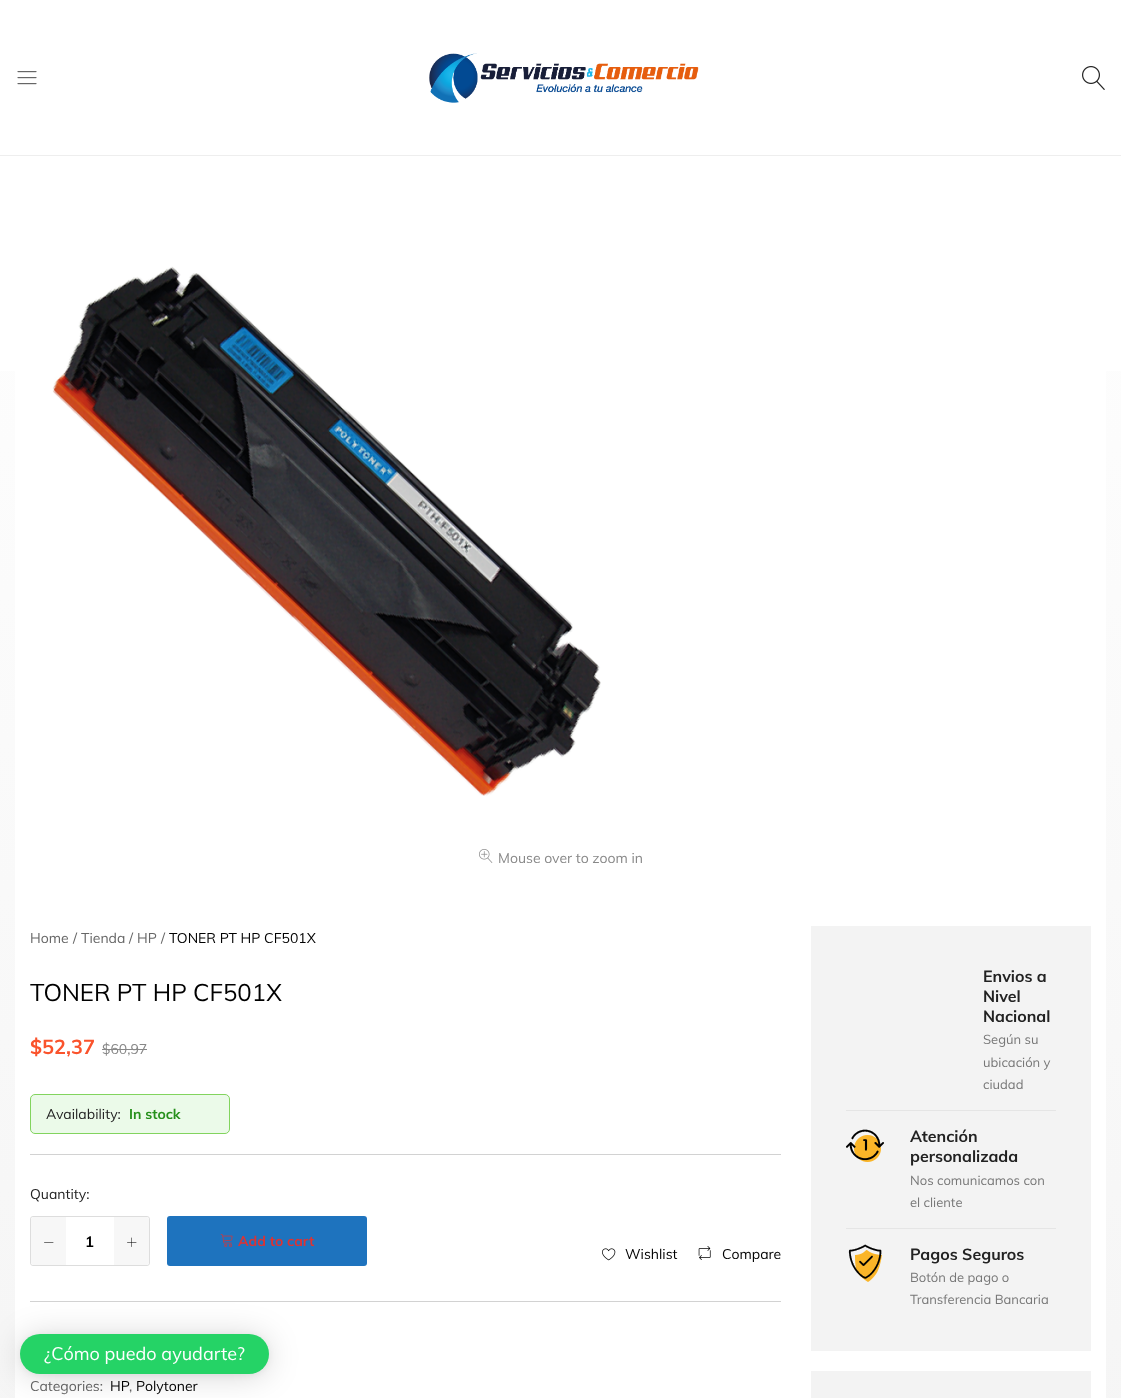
<!DOCTYPE html>
<meta charset="utf-8">
<style>body { margin: 0 } canvas { display: block }</style>
<canvas id="canvas" width="1121" height="1398"></canvas>
<script type="module">
  const canvas = document.getElementById("canvas");
  const ctx = canvas.getContext("2d");
  ctx.miterLimit = 4;
  ctx.fontKerning = "normal";
  async function loadImage(src) {
    const img = new Image();
    img.src = src;
    await img.decode();
    return img;
  }
  let gradient;

  ctx.fillStyle = "#ffffff";
  ctx.fillRect(0, 0, 1121, 1398);
  gradient = ctx.createLinearGradient(560, 0, 561, 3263);
  gradient.addColorStop(0, "#ffffff");
  gradient.addColorStop(1, "#e9e9e9");
  ctx.fillStyle = gradient;
  ctx.fillRect(0, 371, 1121, 1027);
  ctx.fillStyle = "#eeeeee";
  ctx.fillRect(0, 155, 1121, 1);
  ctx.drawImage(await loadImage("img1.png"), 17, 71, 20, 14);
  ctx.drawImage(await loadImage("img2.png"), 429, 53, 270, 50);
  ctx.drawImage(await loadImage("img3.png"), 1082, 66, 23, 24);
  ctx.fillStyle = "#ffffff";
  ctx.beginPath();
  ctx.roundRect(15, 206, 1091, 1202, 10);
  ctx.fill();
  ctx.drawImage(await loadImage("img4.png"), 52, 266, 549, 530);
  ctx.drawImage(await loadImage("img5.png"), 479, 849, 14, 14);
  ctx.font = "14px Muli";
  ctx.fillStyle = "#888888";
  ctx.fillText("Mouse over to zoom in", 498, 863);
  ctx.fillStyle = "#666666";
  ctx.fillText("Home", 30, 943);
  ctx.fillText("/", 73, 943);
  ctx.fillText("Tienda", 81, 943);
  ctx.fillText("/", 129, 943);
  ctx.fillText("HP", 137, 943);
  ctx.fillText("/", 161, 943);
  ctx.fillStyle = "#000000";
  ctx.fillText("TONER PT HP CF501X", 169, 943);
  ctx.font = "24px Muli";
  ctx.fillText("TONER PT HP CF501X", 30, 1001);
  ctx.font = "bold 20px Muli";
  ctx.fillStyle = "#fa532c";
  ctx.fillText("$52,37", 30, 1054);
  ctx.font = "14px Muli";
  ctx.fillStyle = "#888888";
  ctx.fillText("$60,97", 102, 1054);
  ctx.fillRect(102, 1049, 45, 1);
  ctx.fillStyle = "#ebfae9";
  ctx.beginPath();
  ctx.roundRect(30.5, 1094.5, 199, 39, 4.5);
  ctx.fill();
  ctx.strokeStyle = "#82d45e";
  ctx.stroke();
  ctx.fillStyle = "#222222";
  ctx.fillText("Availability:", 46, 1119);
  ctx.font = "bold 14px Muli";
  ctx.fillStyle = "#26901b";
  ctx.fillText("In stock", 129, 1119);
  ctx.fillStyle = "#d2d2d2";
  ctx.fillRect(30, 1154, 751, 1);
  ctx.fillRect(30, 1301, 751, 1);
  ctx.font = "14px Muli";
  ctx.fillStyle = "#222222";
  ctx.fillText("Quantity:", 30, 1199);
  ctx.beginPath();
  ctx.roundRect(30.5, 1216.5, 119, 49, 2.5);
  ctx.strokeStyle = "#dddddd";
  ctx.stroke();
  ctx.fillStyle = "#f7f7f7";
  ctx.beginPath();
  ctx.roundRect(31, 1217, 35, 48, [3, 0, 0, 3]);
  ctx.fill();
  ctx.drawImage(await loadImage("img6.png"), 44, 1242, 10, 1);
  ctx.font = "bold 15px Muli";
  ctx.fillStyle = "#000000";
  ctx.fillText("1", 85, 1247);
  ctx.fillStyle = "#f7f7f7";
  ctx.beginPath();
  ctx.roundRect(114, 1217, 35, 48, [0, 3, 3, 0]);
  ctx.fill();
  ctx.drawImage(await loadImage("img7.png"), 127, 1237, 10, 10);
  ctx.fillStyle = "#1e73be";
  ctx.beginPath();
  ctx.roundRect(167, 1216, 200, 50, 3);
  ctx.fill();
  ctx.drawImage(await loadImage("img8.png"), 220, 1234, 13, 13);
  ctx.font = "bold 14px Muli";
  ctx.fillStyle = "#dd3333";
  ctx.fillText("Add to cart", 238, 1246);
  ctx.drawImage(await loadImage("img9.png"), 602, 1248, 14, 13);
  ctx.font = "14px Muli";
  ctx.fillStyle = "#000000";
  ctx.fillText("Wishlist", 625, 1259);
  ctx.drawImage(await loadImage("img10.png"), 698, 1246, 13, 14);
  ctx.fillText("Compare", 722, 1259);
  ctx.fillStyle = "#666666";
  ctx.fillText("Categories:", 30, 1391);
  ctx.fillStyle = "#000000";
  ctx.fillText("HP", 110, 1391);
  ctx.fillStyle = "#666666";
  ctx.fillText(",", 129, 1391);
  ctx.fillStyle = "#000000";
  ctx.fillText("Polytoner", 136, 1391);
  ctx.fillStyle = "#f3f3f3";
  ctx.fillRect(811, 926, 280, 425);
  ctx.fillStyle = "#e5e5e5";
  ctx.fillRect(846, 1110, 210, 1);
  ctx.font = "bold 16px Muli";
  ctx.fillStyle = "#222222";
  ctx.fillText("Envios a", 983, 982);
  ctx.fillText("Nivel", 983, 1002);
  ctx.fillText("Nacional", 983, 1022);
  ctx.font = "13px Muli";
  ctx.fillStyle = "#777777";
  ctx.fillText("Según su", 983, 1044);
  ctx.fillText("ubicación y", 983, 1067);
  ctx.fillText("ciudad", 983, 1089);
  ctx.fillStyle = "#e5e5e5";
  ctx.fillRect(846, 1228, 210, 1);
  ctx.drawImage(await loadImage("img11.png"), 846, 1129, 38, 33);
  ctx.font = "bold 16px Muli";
  ctx.fillStyle = "#222222";
  ctx.fillText("Atención", 910, 1142);
  ctx.fillText("personalizada", 910, 1162);
  ctx.font = "13px Muli";
  ctx.fillStyle = "#777777";
  ctx.fillText("Nos comunicamos con", 910, 1185);
  ctx.fillText("el cliente", 910, 1207);
  ctx.drawImage(await loadImage("img12.png"), 848, 1244, 34, 38);
  ctx.font = "bold 16px Muli";
  ctx.fillStyle = "#222222";
  ctx.fillText("Pagos Seguros", 910, 1260);
  ctx.font = "13px Muli";
  ctx.fillStyle = "#777777";
  ctx.fillText("Botón de pago o", 910, 1282);
  ctx.fillText("Transferencia Bancaria", 910, 1304);
  ctx.fillStyle = "#f3f3f3";
  ctx.fillRect(811, 1371, 280, 27);
  ctx.fillStyle = "rgba(0, 0, 0, 0.16)";
  ctx.filter = "blur(16px)";
  ctx.beginPath();
  ctx.roundRect(20, 1336, 249, 40, 20);
  ctx.fill();
  ctx.filter = "none";
  ctx.fillStyle = "rgba(0, 0, 0, 0.06)";
  ctx.filter = "blur(3px)";
  ctx.beginPath();
  ctx.roundRect(20, 1335, 249, 40, 20);
  ctx.fill();
  ctx.filter = "none";
  ctx.fillStyle = "#25d366";
  ctx.beginPath();
  ctx.roundRect(20, 1334, 249, 40, 20);
  ctx.fill();
  ctx.font = "18px Muli";
  ctx.fillStyle = "#ffffff";
  ctx.fillText("¿Cómo puedo ayudarte?", 44, 1360);
</script>
